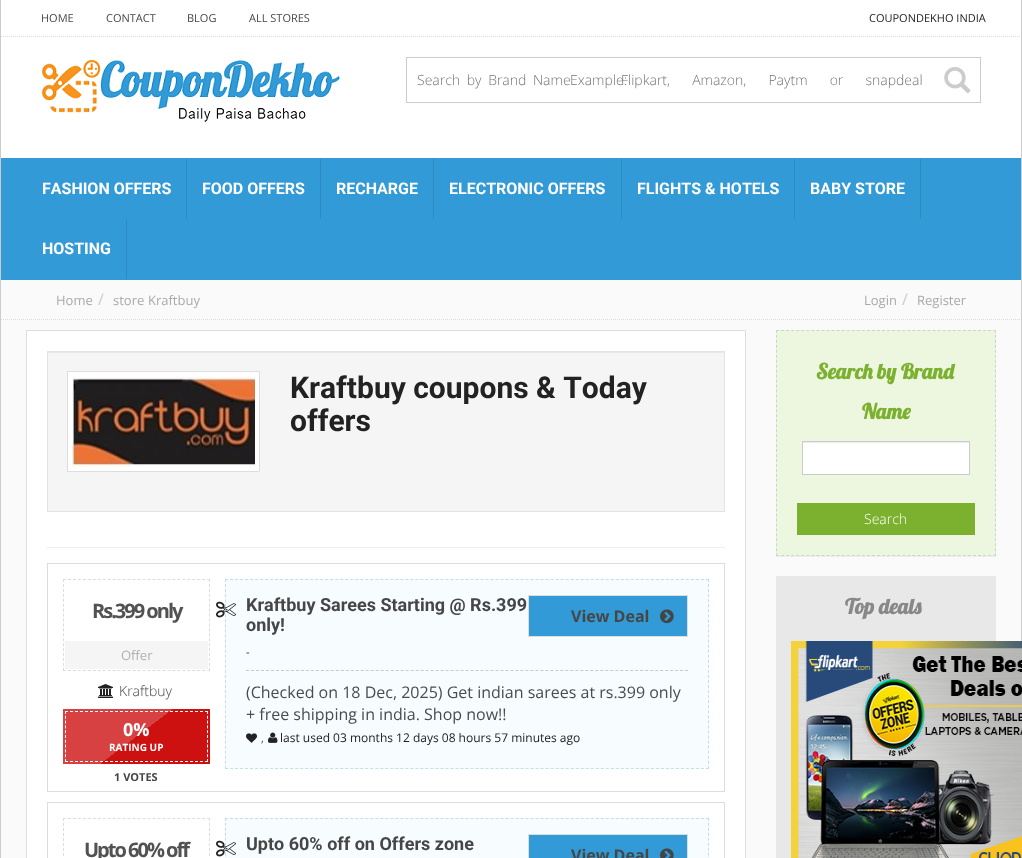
<!DOCTYPE html>
<meta charset="utf-8">
<style>body { margin: 0 } canvas { display: block }</style>
<canvas id="canvas" width="1022" height="858"></canvas>
<script type="module">
  const canvas = document.getElementById("canvas");
  const ctx = canvas.getContext("2d");
  ctx.miterLimit = 4;
  ctx.fontKerning = "none";
  async function loadImage(src) {
    const img = new Image();
    img.src = src;
    await img.decode();
    return img;
  }
  let gradient;

  ctx.fillStyle = "#ffffff";
  ctx.fillRect(0, 0, 1022, 858);
  ctx.fillStyle = "#cccccc";
  ctx.fillRect(1021, 0, 1, 641);
  ctx.fillRect(0, 0, 1, 858);
  ctx.beginPath();
  ctx.moveTo(1, 36.5);
  ctx.lineTo(1021, 36.5);
  ctx.strokeStyle = "#dddddd";
  ctx.setLineDash([1, 1]);
  ctx.stroke();
  ctx.font = "11px Open Sans";
  ctx.fillStyle = "#474646";
  ctx.fillText("HOME", 41, 22);
  ctx.fillText("CONTACT", 106, 22);
  ctx.fillText("BLOG", 187, 22);
  ctx.fillText("ALL STORES", 249, 22);
  ctx.fillStyle = "#222222";
  ctx.fillText("COUPONDEKHO INDIA", 869, 22);
  ctx.drawImage(await loadImage("img1.png"), 41, 59, 299, 63);
  ctx.strokeStyle = "#cccccc";
  ctx.setLineDash([]);
  ctx.strokeRect(406.5, 57.5, 574, 45);
  ctx.wordSpacing = "3px";
  ctx.font = "300 14px Open Sans";
  ctx.fillStyle = "#757575";
  ctx.fillText("Search by Brand Name", 417, 85);
  ctx.wordSpacing = "0px";
  ctx.fillText("Example:", 570, 85);
  ctx.wordSpacing = "18.5px";
  ctx.fillText("Flipkart, Amazon, Paytm or snapdeal", 621, 85);
  ctx.drawImage(await loadImage("img2.png"), 944, 67, 27, 27);
  ctx.fillStyle = "#329ad6";
  ctx.fillRect(1, 158, 1020, 122);
  ctx.fillStyle = "#2d8bc1";
  ctx.fillRect(186, 159, 1, 60);
  ctx.wordSpacing = "0px";
  ctx.font = "bold 16px Roboto";
  ctx.fillStyle = "#ffffff";
  ctx.fillText("FASHION OFFERS", 42, 194);
  ctx.fillStyle = "#2d8bc1";
  ctx.fillRect(320, 159, 1, 60);
  ctx.fillStyle = "#ffffff";
  ctx.fillText("FOOD OFFERS", 202, 194);
  ctx.fillStyle = "#2d8bc1";
  ctx.fillRect(433, 159, 1, 60);
  ctx.fillStyle = "#ffffff";
  ctx.fillText("RECHARGE", 336, 194);
  ctx.fillStyle = "#2d8bc1";
  ctx.fillRect(621, 159, 1, 60);
  ctx.fillStyle = "#ffffff";
  ctx.fillText("ELECTRONIC OFFERS", 449, 194);
  ctx.fillStyle = "#2d8bc1";
  ctx.fillRect(794, 159, 1, 60);
  ctx.fillStyle = "#ffffff";
  ctx.fillText("FLIGHTS & HOTELS", 637, 194);
  ctx.fillStyle = "#2d8bc1";
  ctx.fillRect(920, 159, 1, 60);
  ctx.fillStyle = "#ffffff";
  ctx.fillText("BABY STORE", 810, 194);
  ctx.fillStyle = "#2d8bc1";
  ctx.fillRect(126, 219, 1, 60);
  ctx.fillStyle = "#ffffff";
  ctx.fillText("HOSTING", 42, 254);
  ctx.fillStyle = "#fafafa";
  ctx.fillRect(1, 280, 1020, 578);
  ctx.beginPath();
  ctx.moveTo(1, 319.5);
  ctx.lineTo(1021, 319.5);
  ctx.strokeStyle = "#dddddd";
  ctx.setLineDash([1, 1]);
  ctx.stroke();
  ctx.font = "13px Open Sans";
  ctx.fillStyle = "#aaaaaa";
  ctx.fillText("Home", 56, 305);
  ctx.font = "16px Open Sans";
  ctx.fillStyle = "#cccccc";
  ctx.fillText("/", 98, 305);
  ctx.font = "13px Open Sans";
  ctx.fillStyle = "#aaaaaa";
  ctx.fillText("store", 113, 305);
  ctx.fillText("Kraftbuy", 148, 305);
  ctx.fillText("Login", 864, 305);
  ctx.font = "16px Open Sans";
  ctx.fillStyle = "#cccccc";
  ctx.fillText("/", 902, 305);
  ctx.font = "13px Open Sans";
  ctx.fillStyle = "#aaaaaa";
  ctx.fillText("Register", 917, 305);
  ctx.fillStyle = "#ffffff";
  ctx.beginPath();
  ctx.rect(26.5, 330.5, 719, 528);
  ctx.fill();
  ctx.setLineDash([]);
  ctx.stroke();
  ctx.fillStyle = "#f5f5f5";
  ctx.fillRect(48, 353, 676, 158);
  ctx.fillStyle = "#e9e9e9";
  ctx.fillRect(48, 352, 676, 1);
  ctx.strokeStyle = "#e3e3e3";
  ctx.strokeRect(47.5, 351.5, 677, 160);
  ctx.fillStyle = "#ffffff";
  ctx.beginPath();
  ctx.rect(67.5, 371.5, 192, 100);
  ctx.fill();
  ctx.strokeStyle = "#dddddd";
  ctx.stroke();
  ctx.drawImage(await loadImage("img3.png"), 72, 376, 183, 91);
  ctx.font = "bold 30px Roboto";
  ctx.fillStyle = "#222222";
  ctx.fillText("Kraftbuy coupons & Today", 290, 398);
  ctx.fillText("offers", 290, 431);
  ctx.fillStyle = "#eeeeee";
  ctx.fillRect(47, 547, 678, 1);
  ctx.strokeRect(47.5, 563.5, 677, 228);
  ctx.beginPath();
  ctx.moveTo(63, 579.5);
  ctx.lineTo(210, 579.5);
  ctx.setLineDash([3, 1.97]);
  ctx.stroke();
  ctx.beginPath();
  ctx.moveTo(209.5, 579);
  ctx.lineTo(209.5, 671);
  ctx.setLineDash([3, 1.94]);
  ctx.stroke();
  ctx.beginPath();
  ctx.moveTo(63, 670.5);
  ctx.lineTo(210, 670.5);
  ctx.setLineDash([3, 1.97]);
  ctx.stroke();
  ctx.beginPath();
  ctx.moveTo(63.5, 579);
  ctx.lineTo(63.5, 671);
  ctx.setLineDash([3, 1.94]);
  ctx.stroke();
  ctx.letterSpacing = "-2px";
  ctx.font = "bold 20px Open Sans";
  ctx.fillStyle = "#525252";
  ctx.fillText("Rs.399 only", 92, 618);
  ctx.fillStyle = "#f5f5f5";
  ctx.fillRect(65, 641, 143, 28);
  ctx.letterSpacing = "0px";
  ctx.font = "13px Open Sans";
  ctx.fillStyle = "#b1b1b1";
  ctx.fillText("Offer", 121, 660);
  ctx.drawImage(await loadImage("img4.png"), 98, 684, 15, 14);
  ctx.font = "300 14px Open Sans";
  ctx.fillStyle = "#474646";
  ctx.fillText("Kraftbuy", 119, 696);
  gradient = ctx.createLinearGradient(97, 684, 176, 789);
  gradient.addColorStop(0.5, "#d74141");
  gradient.addColorStop(0.5, "#cd1111");
  ctx.fillStyle = gradient;
  ctx.fillRect(63, 709, 147, 55);
  ctx.beginPath();
  ctx.moveTo(65, 711.5);
  ctx.lineTo(208, 711.5);
  ctx.strokeStyle = "#ffffff";
  ctx.setLineDash([3, 2]);
  ctx.stroke();
  ctx.beginPath();
  ctx.moveTo(207.5, 711);
  ctx.lineTo(207.5, 762);
  ctx.setLineDash([3, 1.8]);
  ctx.stroke();
  ctx.beginPath();
  ctx.moveTo(65, 761.5);
  ctx.lineTo(208, 761.5);
  ctx.setLineDash([3, 2]);
  ctx.stroke();
  ctx.beginPath();
  ctx.moveTo(65.5, 711);
  ctx.lineTo(65.5, 762);
  ctx.setLineDash([3, 1.8]);
  ctx.stroke();
  ctx.font = "bold 18px Open Sans";
  ctx.fillStyle = "#ffffff";
  ctx.fillText("0%", 123, 736);
  ctx.font = "bold 10px Open Sans";
  ctx.fillText("RATING UP", 109, 751);
  ctx.font = "bold 11px Open Sans";
  ctx.fillStyle = "#474646";
  ctx.fillText("1 VOTES", 114, 781);
  ctx.fillStyle = "#f7fdff";
  ctx.fillRect(225, 579, 484, 190);
  ctx.beginPath();
  ctx.moveTo(225, 579.5);
  ctx.lineTo(709, 579.5);
  ctx.strokeStyle = "#c1dfeb";
  ctx.setLineDash([3, 2.01]);
  ctx.stroke();
  ctx.beginPath();
  ctx.moveTo(708.5, 579);
  ctx.lineTo(708.5, 769);
  ctx.setLineDash([3, 2.05]);
  ctx.stroke();
  ctx.beginPath();
  ctx.moveTo(225, 768.5);
  ctx.lineTo(709, 768.5);
  ctx.setLineDash([3, 2.01]);
  ctx.stroke();
  ctx.beginPath();
  ctx.moveTo(225.5, 579);
  ctx.lineTo(225.5, 769);
  ctx.setLineDash([3, 2.05]);
  ctx.stroke();
  ctx.drawImage(await loadImage("img5.png"), 216, 601, 20, 17);
  ctx.font = "bold 18px Roboto";
  ctx.fillStyle = "#474646";
  ctx.fillText("Kraftbuy Sarees Starting @ Rs.399", 246, 611);
  ctx.fillText("only!", 246, 631);
  ctx.fillStyle = "#329ad6";
  ctx.beginPath();
  ctx.rect(528.5, 595.5, 159, 41);
  ctx.fill();
  ctx.strokeStyle = "#dddddd";
  ctx.setLineDash([]);
  ctx.stroke();
  ctx.font = "bold 16px Open Sans";
  ctx.fillStyle = "#474646";
  ctx.fillText("View Deal", 571, 622);
  ctx.drawImage(await loadImage("img6.png"), 660, 609, 14, 15);
  ctx.font = "11px Open Sans";
  ctx.fillStyle = "#222222";
  ctx.fillText("-", 246, 656);
  ctx.beginPath();
  ctx.moveTo(246, 670.5);
  ctx.lineTo(688, 670.5);
  ctx.strokeStyle = "#c6cacc";
  ctx.setLineDash([3, 1.99]);
  ctx.stroke();
  ctx.font = "16px Open Sans";
  ctx.fillStyle = "#4a4c4d";
  ctx.fillText("(Checked on 18 Dec, 2025) Get indian sarees at rs.399 only", 246, 698);
  ctx.fillText("+ free shipping in india. Shop now!!", 246, 720);
  ctx.drawImage(await loadImage("img7.png"), 246, 733, 11, 10);
  ctx.font = "11px Open Sans";
  ctx.fillStyle = "#474646";
  ctx.fillText(",", 261, 742);
  ctx.drawImage(await loadImage("img8.png"), 268, 732, 10, 11);
  ctx.font = "12px Open Sans";
  ctx.fillStyle = "#222222";
  ctx.fillText("last used 03 months 12 days 08 hours 57 minutes ago", 280, 742);
  ctx.strokeStyle = "#dddddd";
  ctx.setLineDash([]);
  ctx.strokeRect(47.5, 802.5, 677, 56);
  ctx.beginPath();
  ctx.moveTo(63, 818.5);
  ctx.lineTo(210, 818.5);
  ctx.setLineDash([3, 1.97]);
  ctx.stroke();
  ctx.beginPath();
  ctx.moveTo(209.5, 818);
  ctx.lineTo(209.5, 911);
  ctx.setLineDash([3, 2]);
  ctx.stroke();
  ctx.beginPath();
  ctx.moveTo(63.5, 818);
  ctx.lineTo(63.5, 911);
  ctx.stroke();
  ctx.letterSpacing = "-2px";
  ctx.font = "bold 20px Open Sans";
  ctx.fillStyle = "#525252";
  ctx.fillText("Upto 60% off", 84, 857);
  ctx.fillStyle = "#f7fdff";
  ctx.fillRect(225, 818, 484, 40);
  ctx.beginPath();
  ctx.moveTo(225, 818.5);
  ctx.lineTo(709, 818.5);
  ctx.strokeStyle = "#c1dfeb";
  ctx.setLineDash([3, 2.01]);
  ctx.stroke();
  ctx.beginPath();
  ctx.moveTo(708.5, 818);
  ctx.lineTo(708.5, 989);
  ctx.setLineDash([3, 1.94]);
  ctx.stroke();
  ctx.beginPath();
  ctx.moveTo(225.5, 818);
  ctx.lineTo(225.5, 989);
  ctx.stroke();
  ctx.drawImage(await loadImage("img9.png"), 216, 840, 20, 17);
  ctx.letterSpacing = "0px";
  ctx.font = "bold 18px Roboto";
  ctx.fillStyle = "#474646";
  ctx.fillText("Upto 60% off on Offers zone", 246, 850);
  ctx.fillStyle = "#329ad6";
  ctx.beginPath();
  ctx.rect(528.5, 834.5, 159, 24);
  ctx.fill();
  ctx.strokeStyle = "#dddddd";
  ctx.setLineDash([]);
  ctx.stroke();
  ctx.font = "bold 16px Open Sans";
  ctx.fillStyle = "#474646";
  ctx.fillText("View Deal", 571, 861);
  ctx.drawImage(await loadImage("img10.png"), 660, 848, 14, 10);
  ctx.fillStyle = "rgba(0, 0, 0, 0.05)";
  ctx.filter = "blur(0.5px)";
  ctx.beginPath();
  ctx.rect(776, 331, 220, 226);
  ctx.fill();
  ctx.filter = "none";
  ctx.fillStyle = "#edf7df";
  ctx.fillRect(776, 330, 220, 226);
  ctx.beginPath();
  ctx.moveTo(776, 330.5);
  ctx.lineTo(996, 330.5);
  ctx.strokeStyle = "#c8d8c8";
  ctx.setLineDash([3, 2.05]);
  ctx.stroke();
  ctx.beginPath();
  ctx.moveTo(995.5, 330);
  ctx.lineTo(995.5, 556);
  ctx.setLineDash([3, 1.96]);
  ctx.stroke();
  ctx.beginPath();
  ctx.moveTo(776, 555.5);
  ctx.lineTo(996, 555.5);
  ctx.setLineDash([3, 2.05]);
  ctx.stroke();
  ctx.beginPath();
  ctx.moveTo(776.5, 330);
  ctx.lineTo(776.5, 556);
  ctx.setLineDash([3, 1.96]);
  ctx.stroke();
  ctx.font = "bold 21px Lobster";
  ctx.fillStyle = "#7bb12f";
  ctx.fillText("Search by Brand", 816, 379);
  ctx.fillText("Name", 862, 419);
  ctx.fillStyle = "#ffffff";
  ctx.fillRect(803, 443, 166, 31);
  ctx.fillStyle = "#ececec";
  ctx.fillRect(803, 442, 166, 1);
  ctx.strokeStyle = "#cccccc";
  ctx.setLineDash([]);
  ctx.strokeRect(802.5, 441.5, 167, 33);
  ctx.fillStyle = "#7bb12f";
  ctx.fillRect(797, 503, 178, 32);
  ctx.font = "300 14px Open Sans";
  ctx.fillStyle = "#ffffff";
  ctx.fillText("Search", 864, 524);
  ctx.fillStyle = "#e8e8e8";
  ctx.fillRect(776, 576, 220, 282);
  ctx.font = "bold 21px Lobster";
  ctx.fillStyle = "#888888";
  ctx.fillText("Top deals", 845, 614);
  ctx.drawImage(await loadImage("img11.png"), 791, 641, 231, 217);
</script>
